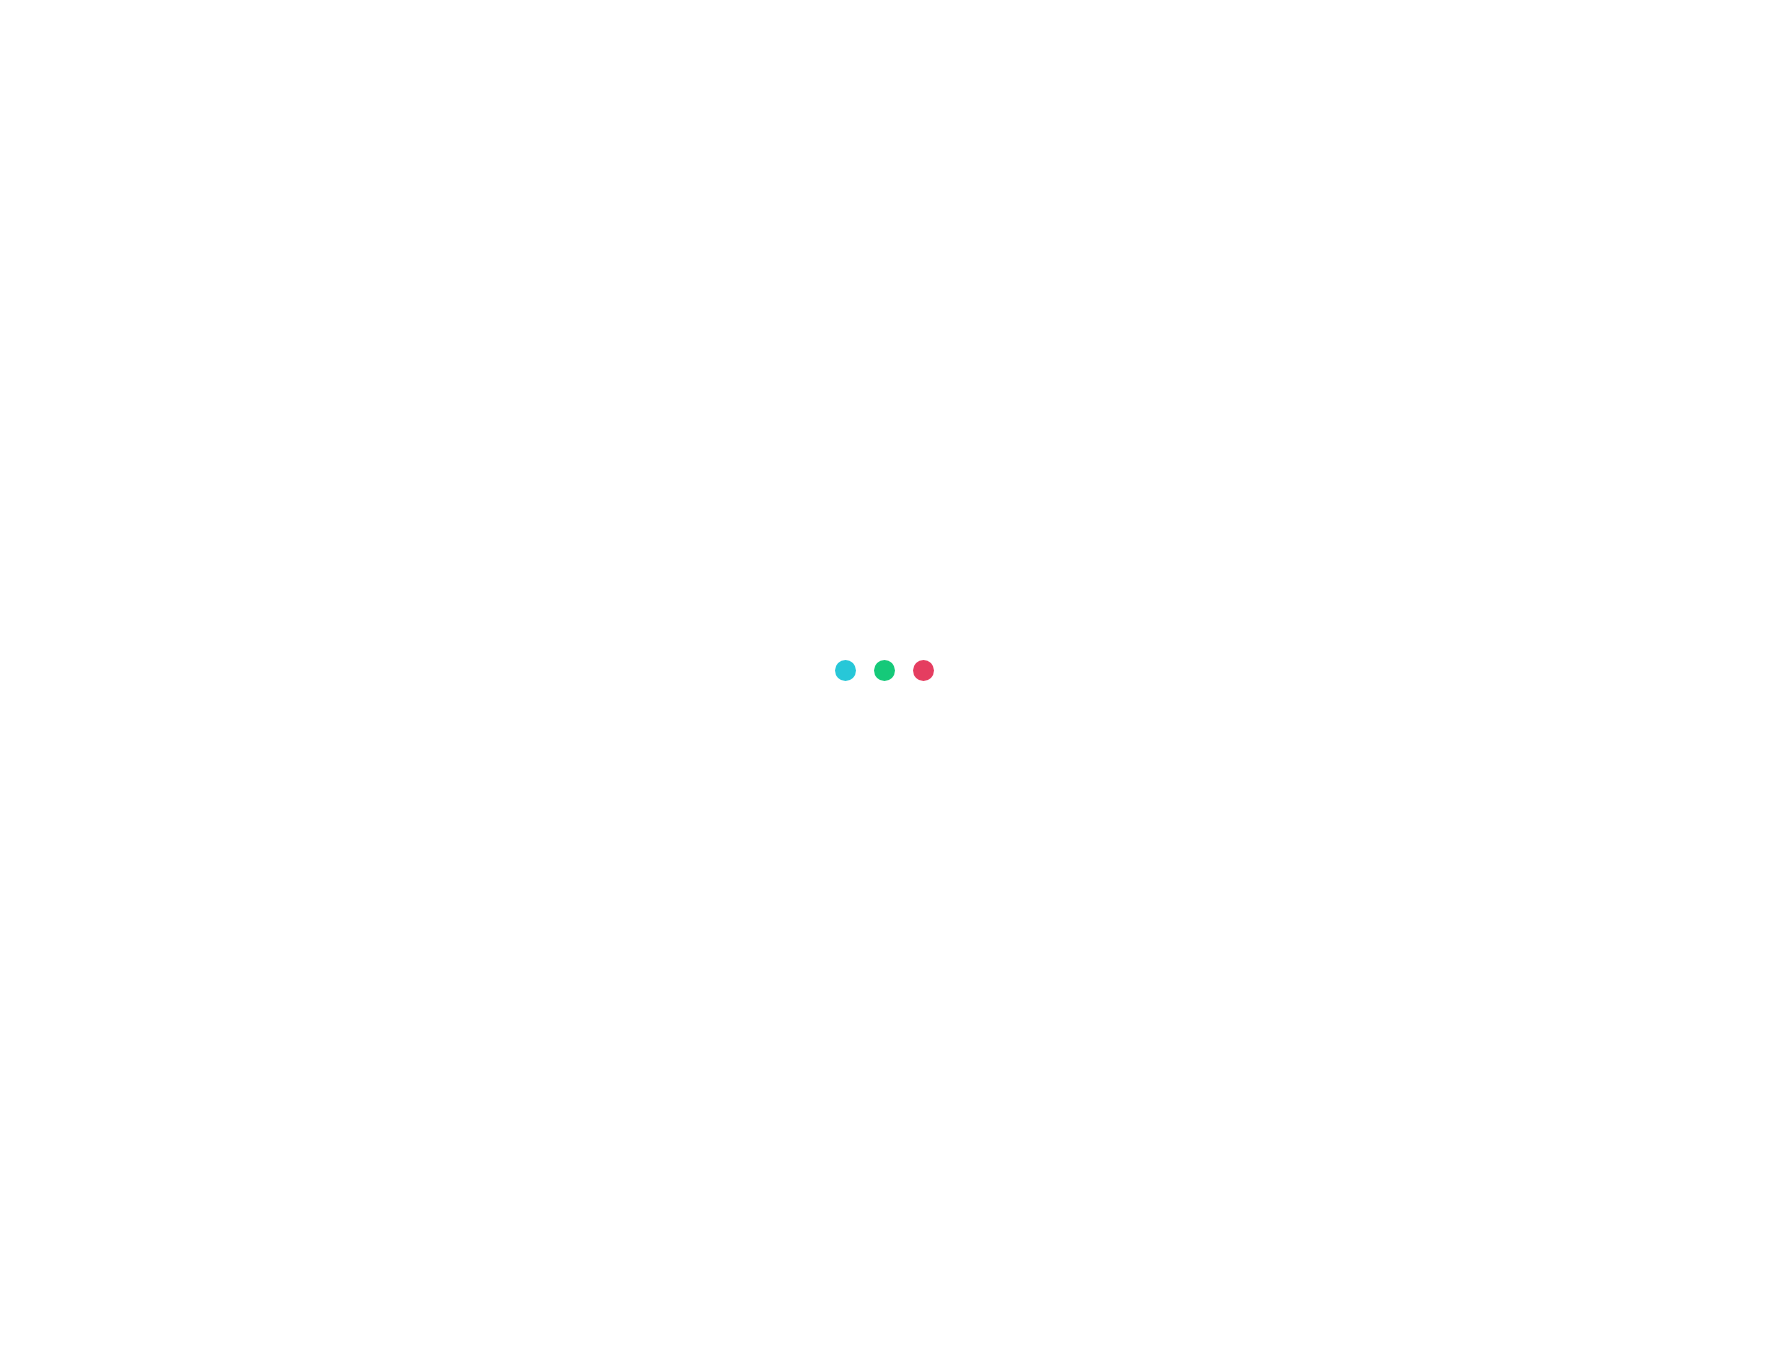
<!DOCTYPE html>
<meta charset="utf-8">
<style>body { margin: 0 } canvas { display: block }</style>
<canvas id="canvas" width="1768" height="1350"></canvas>
<script type="module">
  const canvas = document.getElementById("canvas");
  const ctx = canvas.getContext("2d");
  ctx.miterLimit = 4;
  ctx.fontKerning = "normal";

  ctx.fillStyle = "#ffffff";
  ctx.fillRect(0, 0, 1768, 1350);
  ctx.fillStyle = "#27c7d8";
  ctx.beginPath();
  ctx.arc(845.5, 670.5, 10.5, 0, Math.PI * 2);
  ctx.fill();
  ctx.fillStyle = "#15c979";
  ctx.beginPath();
  ctx.arc(884.5, 670.5, 10.5, 0, Math.PI * 2);
  ctx.fill();
  ctx.fillStyle = "#e53d60";
  ctx.beginPath();
  ctx.arc(923.5, 670.5, 10.5, 0, Math.PI * 2);
  ctx.fill();
</script>
